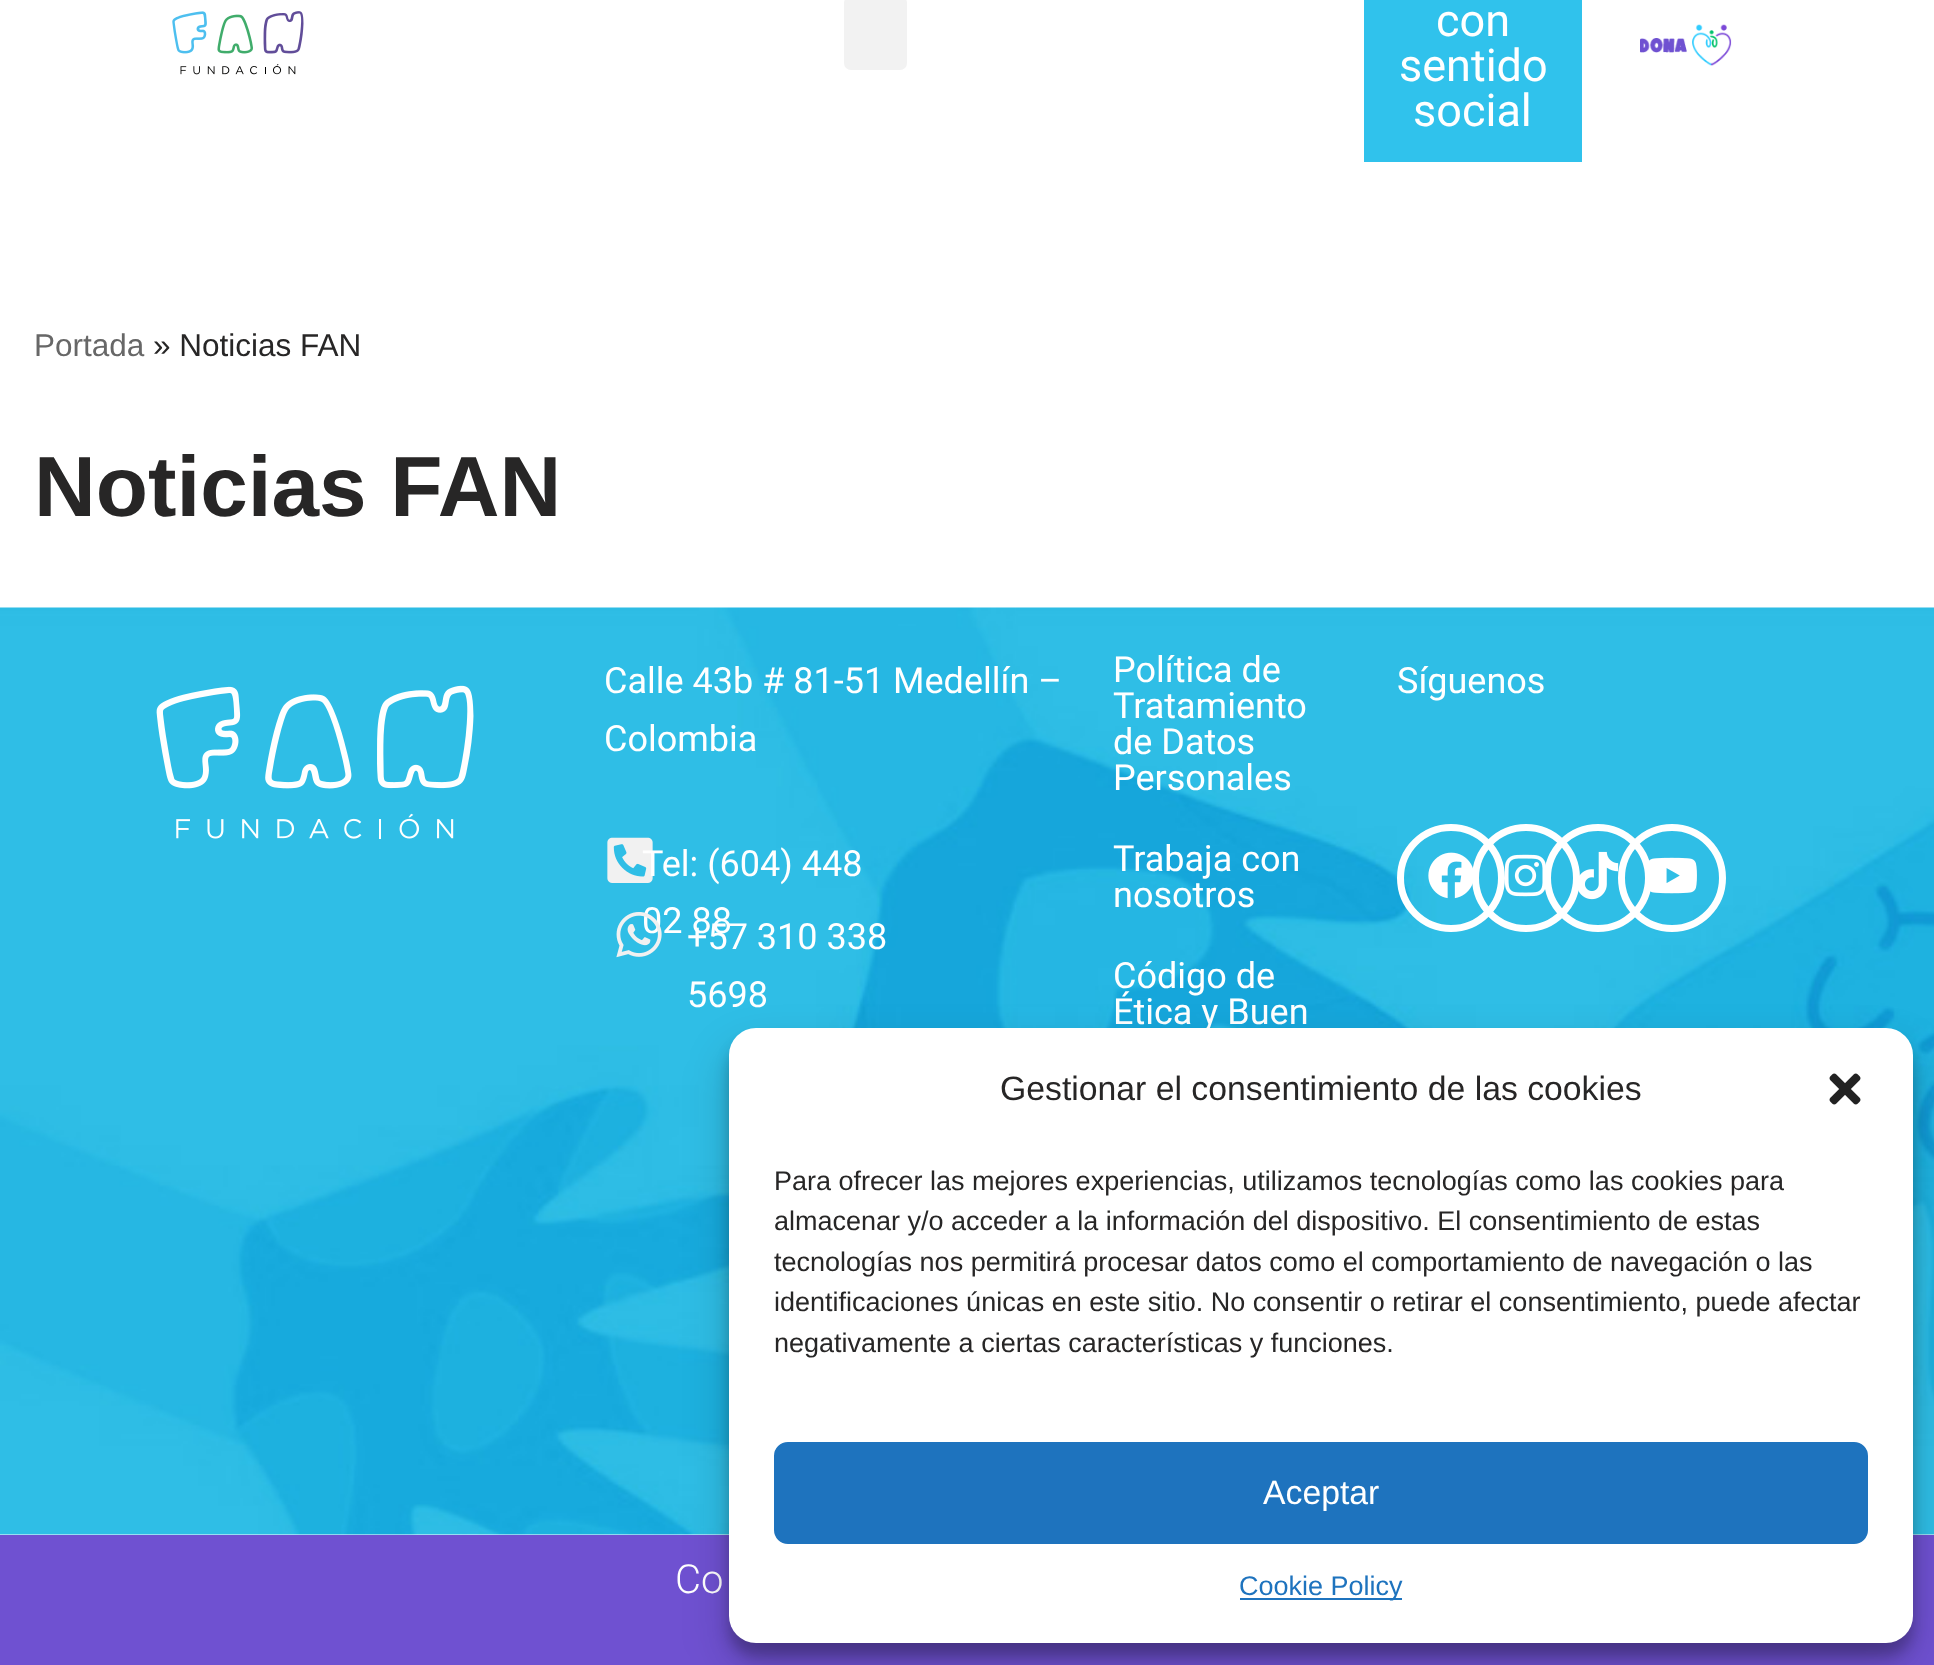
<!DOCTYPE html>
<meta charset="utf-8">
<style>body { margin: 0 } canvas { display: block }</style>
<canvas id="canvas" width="1934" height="1665"></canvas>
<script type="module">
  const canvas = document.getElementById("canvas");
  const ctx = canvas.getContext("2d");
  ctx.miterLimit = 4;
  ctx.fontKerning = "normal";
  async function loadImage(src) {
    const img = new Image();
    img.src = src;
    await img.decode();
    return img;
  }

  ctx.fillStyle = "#ffffff";
  ctx.fillRect(0, 0, 1934, 1665);
  ctx.drawImage(await loadImage("img1.png"), 172, 11, 132, 64);
  ctx.fillStyle = "#f2f2f2";
  ctx.beginPath();
  ctx.roundRect(844, -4, 63, 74, 7);
  ctx.fill();
  ctx.fillStyle = "#30c2ec";
  ctx.fillRect(1364, 0, 218, 162);
  ctx.font = "45px Roboto";
  ctx.fillStyle = "#ffffff";
  ctx.fillText("con", 1436, 36);
  ctx.fillText("sentido", 1399, 81);
  ctx.fillText("social", 1413, 126);
  ctx.drawImage(await loadImage("img2.png"), 1640, 24, 92, 42);
  ctx.font = "31.5px Liberation Sans";
  ctx.fillStyle = "#676767";
  ctx.fillText("Portada", 34, 356);
  ctx.fillStyle = "#272626";
  ctx.fillText("» Noticias FAN", 153, 356);
  ctx.font = "bold 85.5px Liberation Sans";
  ctx.fillText("Noticias FAN", 34, 516);
  ctx.drawImage(await loadImage("img3.png"), 0, 607, 1934, 928);
  ctx.drawImage(await loadImage("img4.png"), 156, 685, 318, 154);
  ctx.font = "36px Roboto";
  ctx.fillStyle = "#ffffff";
  ctx.fillText("Calle 43b # 81-51 Medellín –", 604, 693);
  ctx.fillText("Colombia", 604, 751);
  ctx.drawImage(await loadImage("img5.png"), 607, 837, 46, 46);
  ctx.fillText("Tel: (604) 448", 642, 876);
  ctx.fillText("02 88", 642, 933);
  ctx.drawImage(await loadImage("img6.png"), 616, 912, 46, 46);
  ctx.fillText("+57 310 338", 687, 949);
  ctx.fillText("5698", 687, 1007);
  ctx.fillText("Política de", 1113, 682);
  ctx.fillText("Tratamiento", 1113, 718);
  ctx.fillText("de Datos", 1113, 754);
  ctx.fillText("Personales", 1113, 790);
  ctx.fillText("Trabaja con", 1113, 871);
  ctx.fillText("nosotros", 1113, 907);
  ctx.fillText("Código de", 1113, 988);
  ctx.fillText("Ética y Buen", 1113, 1024);
  ctx.fillText("Síguenos", 1397, 693);
  ctx.beginPath();
  ctx.arc(1451, 878, 50.5, 0, Math.PI * 2);
  ctx.strokeStyle = "#ffffff";
  ctx.lineWidth = 7;
  ctx.stroke();
  ctx.drawImage(await loadImage("img7.png"), 1428, 852, 45, 47);
  ctx.beginPath();
  ctx.arc(1526, 878, 50.5, 0, Math.PI * 2);
  ctx.stroke();
  ctx.drawImage(await loadImage("img8.png"), 1504, 854, 42, 43);
  ctx.beginPath();
  ctx.arc(1598, 878, 50.5, 0, Math.PI * 2);
  ctx.stroke();
  ctx.drawImage(await loadImage("img9.png"), 1578, 851, 41, 49);
  ctx.beginPath();
  ctx.arc(1672, 878, 50.5, 0, Math.PI * 2);
  ctx.stroke();
  ctx.drawImage(await loadImage("img10.png"), 1649, 857, 48, 37);
  ctx.fillStyle = "#6f51d1";
  ctx.fillRect(0, 1535, 1934, 130);
  ctx.font = "300 40px Roboto";
  ctx.fillStyle = "#ffffff";
  ctx.fillText("Co", 675, 1593);
  ctx.fillStyle = "rgba(0, 0, 0, 0.23)";
  ctx.filter = "blur(7px)";
  ctx.beginPath();
  ctx.roundRect(729, 1042, 1184, 614, 27);
  ctx.fill();
  ctx.filter = "none";
  ctx.fillStyle = "rgba(0, 0, 0, 0.19)";
  ctx.filter = "blur(22.5px)";
  ctx.beginPath();
  ctx.roundRect(729, 1051, 1184, 614, 27);
  ctx.fill();
  ctx.filter = "none";
  ctx.fillStyle = "#ffffff";
  ctx.beginPath();
  ctx.roundRect(729, 1028, 1184, 615, 27);
  ctx.fill();
  ctx.font = "33.75px Liberation Sans";
  ctx.fillStyle = "#272626";
  ctx.fillText("Gestionar el consentimiento de las cookies", 1000, 1100);
  ctx.drawImage(await loadImage("img11.png"), 1829, 1073, 32, 32);
  ctx.font = "27px Liberation Sans";
  ctx.fillText("Para ofrecer las mejores experiencias, utilizamos tecnologías como las cookies para", 774, 1190);
  ctx.fillText("almacenar y/o acceder a la información del dispositivo. El consentimiento de estas", 774, 1230);
  ctx.fillText("tecnologías nos permitirá procesar datos como el comportamiento de navegación o las", 774, 1271);
  ctx.fillText("identificaciones únicas en este sitio. No consentir o retirar el consentimiento, puede afectar", 774, 1311);
  ctx.fillText("negativamente a ciertas características y funciones.", 774, 1352);
  ctx.fillStyle = "#1e73be";
  ctx.beginPath();
  ctx.roundRect(775, 1443, 1092, 100, 13);
  ctx.fill();
  ctx.strokeStyle = "#1e73be";
  ctx.lineWidth = 2;
  ctx.stroke();
  ctx.font = "33.75px Liberation Sans";
  ctx.fillStyle = "#ffffff";
  ctx.fillText("Aceptar", 1263, 1504);
  ctx.fillStyle = "#1e73be";
  ctx.fillRect(1240, 1598, 162, 2);
  ctx.font = "27px Liberation Sans";
  ctx.fillText("Cookie Policy", 1239, 1595);
</script>
